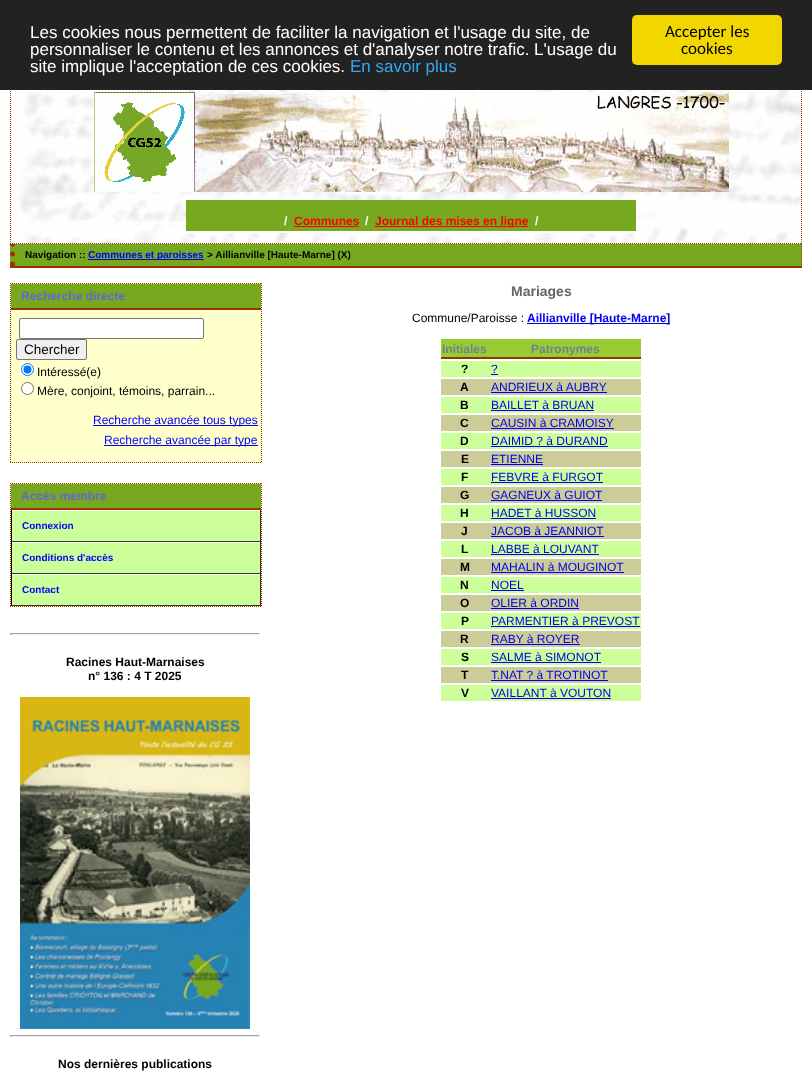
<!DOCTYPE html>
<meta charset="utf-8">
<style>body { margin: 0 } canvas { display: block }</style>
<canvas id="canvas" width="812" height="1078"></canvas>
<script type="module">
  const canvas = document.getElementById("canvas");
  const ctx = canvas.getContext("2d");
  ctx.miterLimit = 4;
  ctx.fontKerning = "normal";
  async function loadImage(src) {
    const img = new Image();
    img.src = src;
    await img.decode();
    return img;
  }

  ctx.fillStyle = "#ffffff";
  ctx.fillRect(0, 0, 812, 1078);
  ctx.fillStyle = "#76a91f";
  ctx.fillRect(10, 244, 792, 22);
  ctx.beginPath();
  ctx.moveTo(801.5, 244);
  ctx.lineTo(801.5, 268);
  ctx.strokeStyle = "#993300";
  ctx.setLineDash([1, 1]);
  ctx.stroke();
  ctx.fillStyle = "#993300";
  ctx.fillRect(10, 266, 792, 2);
  ctx.beginPath();
  ctx.moveTo(12.5, 244);
  ctx.lineTo(12.5, 268);
  ctx.lineWidth = 5;
  ctx.lineCap = "round";
  ctx.setLineDash([0, 10]);
  ctx.stroke();
  ctx.drawImage(await loadImage("img1.png"), 10, 90, 792, 154);
  ctx.beginPath();
  ctx.moveTo(801.5, 81);
  ctx.lineTo(801.5, 244);
  ctx.lineWidth = 1;
  ctx.lineCap = "butt";
  ctx.setLineDash([1, 1]);
  ctx.stroke();
  ctx.beginPath();
  ctx.moveTo(10, 243.5);
  ctx.lineTo(802, 243.5);
  ctx.stroke();
  ctx.beginPath();
  ctx.moveTo(10.5, 81);
  ctx.lineTo(10.5, 244);
  ctx.stroke();
  ctx.fillStyle = "#222222";
  ctx.fillRect(0, 0, 812, 90);
  ctx.font = "17px Liberation Sans";
  ctx.fillStyle = "#ffffff";
  ctx.fillText("Les cookies nous permettent de faciliter la navigation et l'usage du site, de", 30, 38);
  ctx.fillText("personnaliser le contenu et les annonces et d'analyser notre trafic. L'usage du", 30, 55);
  ctx.fillText("site implique l'acceptation de ces cookies.", 30, 72);
  ctx.fillStyle = "#31a8f0";
  ctx.fillText("En savoir plus", 350, 72);
  ctx.fillStyle = "#f1d600";
  ctx.beginPath();
  ctx.roundRect(632, 15, 150, 50, 5);
  ctx.fill();
  ctx.font = "17px Carlito";
  ctx.fillStyle = "#000000";
  ctx.fillText("Accepter les", 665, 37);
  ctx.fillText("cookies", 681, 54);
  ctx.drawImage(await loadImage("img2.png"), 94, 92, 100, 100);
  ctx.drawImage(await loadImage("img3.png"), 194, 92, 535, 100);
  ctx.fillStyle = "#76a91f";
  ctx.fillRect(186, 200, 450, 31);
  ctx.fillStyle = "#ffffff";
  ctx.fillRect(186, 231, 450, 2);
  ctx.font = "bold 12px Liberation Sans";
  ctx.fillText("/", 284, 225);
  ctx.fillStyle = "#ff0000";
  ctx.fillText("Communes", 294, 225);
  ctx.fillRect(294, 226, 65, 1);
  ctx.fillStyle = "#ffffff";
  ctx.fillText("/", 365, 225);
  ctx.fillStyle = "#ff0000";
  ctx.fillRect(375, 226, 153, 1);
  ctx.fillText("Journal des mises en ligne", 375, 225);
  ctx.fillStyle = "#ffffff";
  ctx.fillText("/", 535, 225);
  ctx.font = "bold 10px Liberation Sans";
  ctx.fillStyle = "#000000";
  ctx.fillText("Navigation ::", 25, 258);
  ctx.fillStyle = "#0000ff";
  ctx.fillRect(88, 259, 116, 1);
  ctx.fillText("Communes et paroisses", 88, 258);
  ctx.fillStyle = "#000000";
  ctx.fillText("> Aillianville [Haute-Marne] (X)", 207, 258);
  ctx.fillStyle = "#ffffcc";
  ctx.fillRect(10, 283, 252, 180);
  ctx.beginPath();
  ctx.moveTo(10, 283.5);
  ctx.lineTo(262, 283.5);
  ctx.stroke();
  ctx.beginPath();
  ctx.moveTo(261.5, 283);
  ctx.lineTo(261.5, 463);
  ctx.stroke();
  ctx.beginPath();
  ctx.moveTo(10, 462.5);
  ctx.lineTo(262, 462.5);
  ctx.stroke();
  ctx.beginPath();
  ctx.moveTo(10.5, 283);
  ctx.lineTo(10.5, 463);
  ctx.stroke();
  ctx.fillStyle = "#76a91f";
  ctx.fillRect(11, 284, 250, 24);
  ctx.fillStyle = "#993300";
  ctx.fillRect(11, 308, 250, 2);
  ctx.font = "bold 12px Liberation Sans";
  ctx.fillStyle = "#6666cc";
  ctx.fillText("Recherche directe", 21, 300);
  ctx.fillStyle = "#ffffff";
  ctx.beginPath();
  ctx.roundRect(19.5, 318.5, 184, 20, 1.5);
  ctx.fill();
  ctx.strokeStyle = "#767676";
  ctx.setLineDash([]);
  ctx.stroke();
  ctx.fillStyle = "#efefef";
  ctx.beginPath();
  ctx.roundRect(16.5, 339.5, 70, 20, 1.5);
  ctx.fill();
  ctx.stroke();
  ctx.font = "13.5px Liberation Sans";
  ctx.fillStyle = "#000000";
  ctx.fillText("Chercher", 24, 354);
  ctx.fillStyle = "#ffffff";
  ctx.beginPath();
  ctx.arc(27.5, 369.5, 6, 0, Math.PI * 2);
  ctx.fill();
  ctx.strokeStyle = "#0075ff";
  ctx.stroke();
  ctx.fillStyle = "#0075ff";
  ctx.beginPath();
  ctx.arc(27.5, 369.5, 4, 0, Math.PI * 2);
  ctx.fill();
  ctx.font = "12px Liberation Sans";
  ctx.fillStyle = "#000000";
  ctx.fillText("Intéressé(e)", 37, 376);
  ctx.fillStyle = "#ffffff";
  ctx.beginPath();
  ctx.arc(27.5, 388.5, 6, 0, Math.PI * 2);
  ctx.fill();
  ctx.strokeStyle = "#767676";
  ctx.stroke();
  ctx.fillStyle = "#000000";
  ctx.fillText("Mère, conjoint, témoins, parrain...", 37, 395);
  ctx.fillStyle = "#0000ff";
  ctx.fillRect(93, 425, 165, 1);
  ctx.fillText("Recherche avancée tous types", 93, 424);
  ctx.fillRect(104, 445, 154, 1);
  ctx.fillText("Recherche avancée par type", 104, 444);
  ctx.fillStyle = "#ffffcc";
  ctx.fillRect(10, 483, 252, 124);
  ctx.beginPath();
  ctx.moveTo(10, 483.5);
  ctx.lineTo(262, 483.5);
  ctx.strokeStyle = "#993300";
  ctx.setLineDash([1, 1]);
  ctx.stroke();
  ctx.beginPath();
  ctx.moveTo(261.5, 483);
  ctx.lineTo(261.5, 607);
  ctx.stroke();
  ctx.beginPath();
  ctx.moveTo(10, 606.5);
  ctx.lineTo(262, 606.5);
  ctx.stroke();
  ctx.beginPath();
  ctx.moveTo(10.5, 483);
  ctx.lineTo(10.5, 607);
  ctx.stroke();
  ctx.fillStyle = "#76a91f";
  ctx.fillRect(11, 484, 250, 24);
  ctx.fillStyle = "#993300";
  ctx.fillRect(11, 508, 250, 2);
  ctx.font = "bold 12px Liberation Sans";
  ctx.fillStyle = "#6666cc";
  ctx.fillText("Accès membre", 21, 500);
  ctx.fillStyle = "#ccff99";
  ctx.fillRect(12, 511, 248, 30);
  ctx.fillStyle = "#ffffff";
  ctx.fillRect(11, 510, 250, 1);
  ctx.fillStyle = "#333333";
  ctx.fillRect(260, 510, 1, 32);
  ctx.fillRect(11, 541, 250, 1);
  ctx.fillStyle = "#000000";
  ctx.fillRect(11, 510, 1, 32);
  ctx.font = "bold 10px Liberation Sans";
  ctx.fillStyle = "#0000ff";
  ctx.fillText("Connexion", 22, 529);
  ctx.fillStyle = "#ccff99";
  ctx.fillRect(12, 543, 248, 30);
  ctx.fillStyle = "#ffffff";
  ctx.fillRect(11, 542, 250, 1);
  ctx.fillStyle = "#333333";
  ctx.fillRect(260, 542, 1, 32);
  ctx.fillRect(11, 573, 250, 1);
  ctx.fillStyle = "#000000";
  ctx.fillRect(11, 542, 1, 32);
  ctx.fillStyle = "#0000ff";
  ctx.fillText("Conditions d'accès", 22, 561);
  ctx.fillStyle = "#ccff99";
  ctx.fillRect(12, 575, 248, 30);
  ctx.fillStyle = "#ffffff";
  ctx.fillRect(11, 574, 250, 1);
  ctx.fillStyle = "#333333";
  ctx.fillRect(260, 574, 1, 32);
  ctx.fillRect(11, 605, 250, 1);
  ctx.fillStyle = "#000000";
  ctx.fillRect(11, 574, 1, 32);
  ctx.fillStyle = "#0000ff";
  ctx.fillText("Contact", 22, 593);
  ctx.fillStyle = "#9f9f9f";
  ctx.fillRect(10, 633, 250, 1);
  ctx.fillStyle = "#eeeeee";
  ctx.fillRect(259, 633, 1, 2);
  ctx.fillRect(10, 634, 250, 1);
  ctx.fillStyle = "#9f9f9f";
  ctx.fillRect(10, 633, 1, 2);
  ctx.font = "bold 12px Liberation Sans";
  ctx.fillStyle = "#000000";
  ctx.fillText("Racines Haut-Marnaises", 66, 666);
  ctx.fillText("n° 136 : 4 T 2025", 88, 680);
  ctx.drawImage(await loadImage("img4.png"), 20, 697, 230, 332);
  ctx.fillStyle = "#9f9f9f";
  ctx.fillRect(10, 1035, 250, 1);
  ctx.fillStyle = "#eeeeee";
  ctx.fillRect(259, 1035, 1, 2);
  ctx.fillRect(10, 1036, 250, 1);
  ctx.fillStyle = "#9f9f9f";
  ctx.fillRect(10, 1035, 1, 2);
  ctx.fillStyle = "#000000";
  ctx.fillText("Nos dernières publications", 58, 1068);
  ctx.font = "bold 14px Liberation Sans";
  ctx.fillStyle = "#666666";
  ctx.fillText("Mariages", 511, 296);
  ctx.font = "12px Liberation Sans";
  ctx.fillStyle = "#000000";
  ctx.fillText("Commune/Paroisse :", 412, 322);
  ctx.fillStyle = "#0000ee";
  ctx.fillRect(527, 323, 143, 1);
  ctx.font = "bold 12px Liberation Sans";
  ctx.fillText("Aillianville [Haute-Marne]", 527, 322);
  ctx.fillStyle = "#99cc33";
  ctx.fillRect(441, 339, 200, 18);
  ctx.fillStyle = "#993300";
  ctx.fillRect(441, 357, 200, 2);
  ctx.fillStyle = "#708090";
  ctx.fillText("Initiales", 442, 353);
  ctx.fillText("Patronymes", 531, 353);
  ctx.fillStyle = "#ccff99";
  ctx.fillRect(441, 361, 200, 16);
  ctx.fillStyle = "#000000";
  ctx.fillText("?", 461, 373);
  ctx.font = "12px Liberation Sans";
  ctx.fillStyle = "#0000ee";
  ctx.fillText("?", 491, 373);
  ctx.fillRect(491, 374, 7, 1);
  ctx.fillStyle = "#cccc99";
  ctx.fillRect(441, 379, 200, 16);
  ctx.font = "bold 12px Liberation Sans";
  ctx.fillStyle = "#000000";
  ctx.fillText("A", 460, 391);
  ctx.font = "12px Liberation Sans";
  ctx.fillStyle = "#0000ee";
  ctx.fillText("ANDRIEUX à AUBRY", 491, 391);
  ctx.fillRect(491, 392, 116, 1);
  ctx.fillStyle = "#ccff99";
  ctx.fillRect(441, 397, 200, 16);
  ctx.font = "bold 12px Liberation Sans";
  ctx.fillStyle = "#000000";
  ctx.fillText("B", 460, 409);
  ctx.font = "12px Liberation Sans";
  ctx.fillStyle = "#0000ee";
  ctx.fillText("BAILLET à BRUAN", 491, 409);
  ctx.fillRect(491, 410, 103, 1);
  ctx.fillStyle = "#cccc99";
  ctx.fillRect(441, 415, 200, 16);
  ctx.font = "bold 12px Liberation Sans";
  ctx.fillStyle = "#000000";
  ctx.fillText("C", 460, 427);
  ctx.font = "12px Liberation Sans";
  ctx.fillStyle = "#0000ee";
  ctx.fillText("CAUSIN à CRAMOISY", 491, 427);
  ctx.fillRect(491, 428, 123, 1);
  ctx.fillStyle = "#ccff99";
  ctx.fillRect(441, 433, 200, 16);
  ctx.font = "bold 12px Liberation Sans";
  ctx.fillStyle = "#000000";
  ctx.fillText("D", 460, 445);
  ctx.font = "12px Liberation Sans";
  ctx.fillStyle = "#0000ee";
  ctx.fillText("DAIMID ? à DURAND", 491, 445);
  ctx.fillRect(491, 446, 117, 1);
  ctx.fillStyle = "#cccc99";
  ctx.fillRect(441, 451, 200, 16);
  ctx.font = "bold 12px Liberation Sans";
  ctx.fillStyle = "#000000";
  ctx.fillText("E", 461, 463);
  ctx.font = "12px Liberation Sans";
  ctx.fillStyle = "#0000ee";
  ctx.fillText("ETIENNE", 491, 463);
  ctx.fillRect(491, 464, 52, 1);
  ctx.fillStyle = "#ccff99";
  ctx.fillRect(441, 469, 200, 16);
  ctx.font = "bold 12px Liberation Sans";
  ctx.fillStyle = "#000000";
  ctx.fillText("F", 461, 481);
  ctx.font = "12px Liberation Sans";
  ctx.fillStyle = "#0000ee";
  ctx.fillText("FEBVRE à FURGOT", 491, 481);
  ctx.fillRect(491, 482, 112, 1);
  ctx.fillStyle = "#cccc99";
  ctx.fillRect(441, 487, 200, 16);
  ctx.font = "bold 12px Liberation Sans";
  ctx.fillStyle = "#000000";
  ctx.fillText("G", 460, 499);
  ctx.font = "12px Liberation Sans";
  ctx.fillStyle = "#0000ee";
  ctx.fillText("GAGNEUX à GUIOT", 491, 499);
  ctx.fillRect(491, 500, 111, 1);
  ctx.fillStyle = "#ccff99";
  ctx.fillRect(441, 505, 200, 16);
  ctx.font = "bold 12px Liberation Sans";
  ctx.fillStyle = "#000000";
  ctx.fillText("H", 460, 517);
  ctx.font = "12px Liberation Sans";
  ctx.fillStyle = "#0000ee";
  ctx.fillText("HADET à HUSSON", 491, 517);
  ctx.fillRect(491, 518, 105, 1);
  ctx.fillStyle = "#cccc99";
  ctx.fillRect(441, 523, 200, 16);
  ctx.font = "bold 12px Liberation Sans";
  ctx.fillStyle = "#000000";
  ctx.fillText("J", 461, 535);
  ctx.font = "12px Liberation Sans";
  ctx.fillStyle = "#0000ee";
  ctx.fillText("JACOB à JEANNIOT", 491, 535);
  ctx.fillRect(491, 536, 113, 1);
  ctx.fillStyle = "#ccff99";
  ctx.fillRect(441, 541, 200, 16);
  ctx.font = "bold 12px Liberation Sans";
  ctx.fillStyle = "#000000";
  ctx.fillText("L", 461, 553);
  ctx.font = "12px Liberation Sans";
  ctx.fillStyle = "#0000ee";
  ctx.fillText("LABBE à LOUVANT", 491, 553);
  ctx.fillRect(491, 554, 108, 1);
  ctx.fillStyle = "#cccc99";
  ctx.fillRect(441, 559, 200, 16);
  ctx.font = "bold 12px Liberation Sans";
  ctx.fillStyle = "#000000";
  ctx.fillText("M", 460, 571);
  ctx.font = "12px Liberation Sans";
  ctx.fillStyle = "#0000ee";
  ctx.fillText("MAHALIN à MOUGINOT", 491, 571);
  ctx.fillRect(491, 572, 133, 1);
  ctx.fillStyle = "#ccff99";
  ctx.fillRect(441, 577, 200, 16);
  ctx.font = "bold 12px Liberation Sans";
  ctx.fillStyle = "#000000";
  ctx.fillText("N", 460, 589);
  ctx.font = "12px Liberation Sans";
  ctx.fillStyle = "#0000ee";
  ctx.fillText("NOEL", 491, 589);
  ctx.fillRect(491, 590, 33, 1);
  ctx.fillStyle = "#cccc99";
  ctx.fillRect(441, 595, 200, 16);
  ctx.font = "bold 12px Liberation Sans";
  ctx.fillStyle = "#000000";
  ctx.fillText("O", 460, 607);
  ctx.font = "12px Liberation Sans";
  ctx.fillStyle = "#0000ee";
  ctx.fillText("OLIER à ORDIN", 491, 607);
  ctx.fillRect(491, 608, 88, 1);
  ctx.fillStyle = "#ccff99";
  ctx.fillRect(441, 613, 200, 16);
  ctx.font = "bold 12px Liberation Sans";
  ctx.fillStyle = "#000000";
  ctx.fillText("P", 461, 625);
  ctx.font = "12px Liberation Sans";
  ctx.fillStyle = "#0000ee";
  ctx.fillText("PARMENTIER à PREVOST", 491, 625);
  ctx.fillRect(491, 626, 149, 1);
  ctx.fillStyle = "#cccc99";
  ctx.fillRect(441, 631, 200, 16);
  ctx.font = "bold 12px Liberation Sans";
  ctx.fillStyle = "#000000";
  ctx.fillText("R", 460, 643);
  ctx.font = "12px Liberation Sans";
  ctx.fillStyle = "#0000ee";
  ctx.fillText("RABY à ROYER", 491, 643);
  ctx.fillRect(491, 644, 89, 1);
  ctx.fillStyle = "#ccff99";
  ctx.fillRect(441, 649, 200, 16);
  ctx.font = "bold 12px Liberation Sans";
  ctx.fillStyle = "#000000";
  ctx.fillText("S", 461, 661);
  ctx.font = "12px Liberation Sans";
  ctx.fillStyle = "#0000ee";
  ctx.fillText("SALME à SIMONOT", 491, 661);
  ctx.fillRect(491, 662, 110, 1);
  ctx.fillStyle = "#cccc99";
  ctx.fillRect(441, 667, 200, 16);
  ctx.font = "bold 12px Liberation Sans";
  ctx.fillStyle = "#000000";
  ctx.fillText("T", 461, 679);
  ctx.font = "12px Liberation Sans";
  ctx.fillStyle = "#0000ee";
  ctx.fillText("T.NAT ? à TROTINOT", 491, 679);
  ctx.fillRect(491, 680, 117, 1);
  ctx.fillStyle = "#ccff99";
  ctx.fillRect(441, 685, 200, 16);
  ctx.font = "bold 12px Liberation Sans";
  ctx.fillStyle = "#000000";
  ctx.fillText("V", 461, 697);
  ctx.font = "12px Liberation Sans";
  ctx.fillStyle = "#0000ee";
  ctx.fillText("VAILLANT à VOUTON", 491, 697);
  ctx.fillRect(491, 698, 120, 1);
</script>
